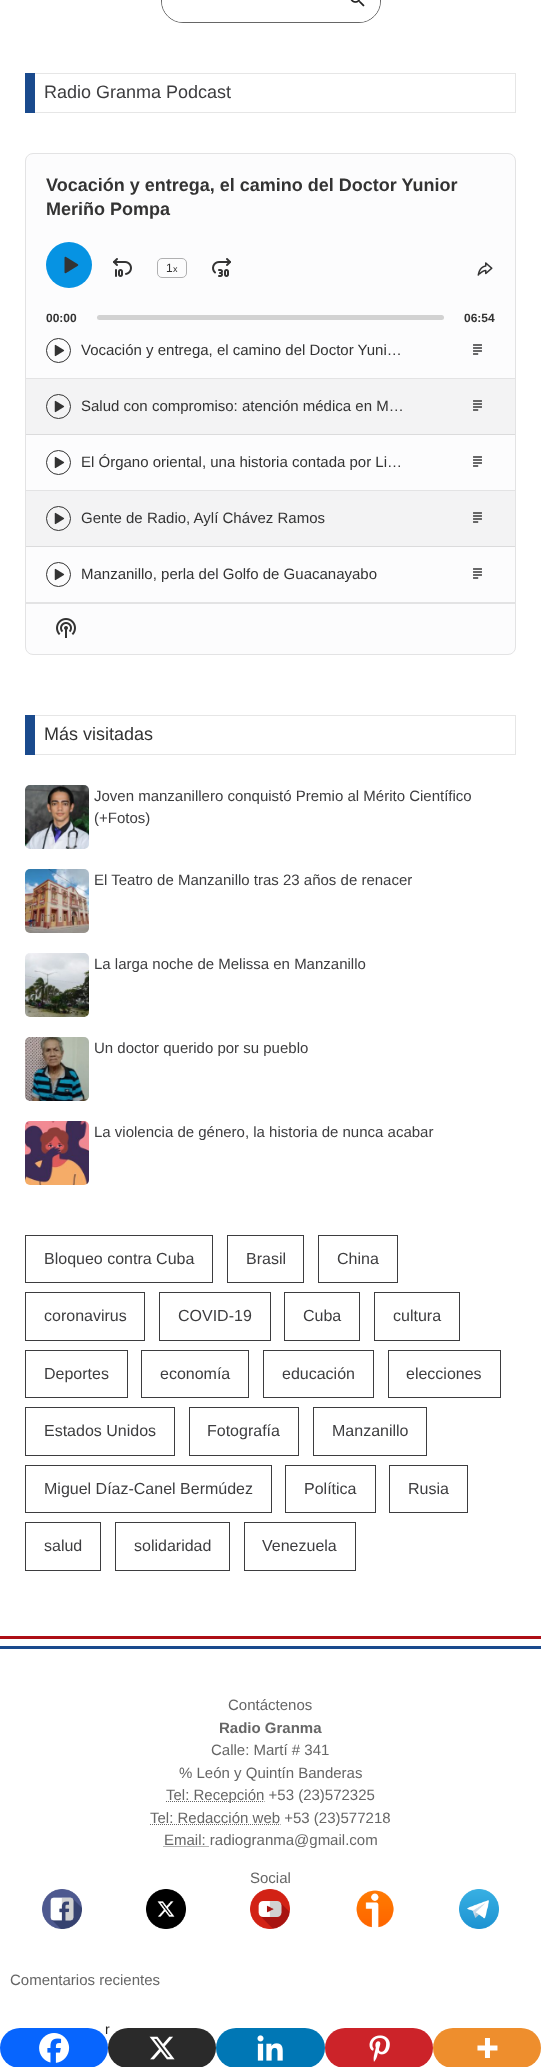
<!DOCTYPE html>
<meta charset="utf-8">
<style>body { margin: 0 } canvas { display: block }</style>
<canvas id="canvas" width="541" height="2067"></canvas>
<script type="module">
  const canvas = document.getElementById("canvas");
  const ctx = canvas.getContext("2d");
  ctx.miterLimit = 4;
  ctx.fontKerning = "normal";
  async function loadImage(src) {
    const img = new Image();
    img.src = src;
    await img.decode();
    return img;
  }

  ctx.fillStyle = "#ffffff";
  ctx.fillRect(0, 0, 541, 2067);
  ctx.beginPath();
  ctx.roundRect(161.5, -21.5, 219, 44, 21.5);
  ctx.strokeStyle = "#666666";
  ctx.stroke();
  ctx.beginPath();
  ctx.roundRect(162, -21, 218, 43, 21);
  ctx.fill();
  ctx.drawImage(await loadImage("img1.png"), 350, 0, 15, 7);
  ctx.strokeStyle = "#e6e6e6";
  ctx.strokeRect(25.5, 73.5, 490, 39);
  ctx.fillStyle = "#1a4a8d";
  ctx.fillRect(25, 73, 10, 40);
  ctx.font = "18px Liberation Sans";
  ctx.fillStyle = "#3d3d3f";
  ctx.fillText("Radio Granma Podcast", 44, 98);
  ctx.fillStyle = "#fcfcfd";
  ctx.beginPath();
  ctx.roundRect(25.5, 153.5, 490, 501, 7.5);
  ctx.fill();
  ctx.strokeStyle = "#e3e3e4";
  ctx.stroke();
  ctx.font = "bold 18px Liberation Sans";
  ctx.fillStyle = "#333333";
  ctx.fillText("Vocación y entrega, el camino del Doctor Yunior", 46, 191);
  ctx.fillText("Meriño Pompa", 46, 215);
  ctx.fillStyle = "#0693e3";
  ctx.beginPath();
  ctx.arc(69, 265, 23, 0, Math.PI * 2);
  ctx.fill();
  ctx.drawImage(await loadImage("img2.png"), 64, 256, 15, 18);
  ctx.drawImage(await loadImage("img3.png"), 113, 258, 19, 19);
  ctx.beginPath();
  ctx.roundRect(157.5, 258.5, 29, 19, 4.5);
  ctx.strokeStyle = "#b0b0b1";
  ctx.stroke();
  ctx.font = "12px Liberation Sans";
  ctx.fillStyle = "#333333";
  ctx.fillText("1", 166, 272);
  ctx.font = "9px Liberation Sans";
  ctx.fillText("x", 173, 272);
  ctx.drawImage(await loadImage("img4.png"), 212, 258, 19, 19);
  ctx.drawImage(await loadImage("img5.png"), 477, 262, 16, 14);
  ctx.font = "bold 12px Liberation Sans";
  ctx.fillText("00:00", 46, 322);
  ctx.fillStyle = "#d2d2d2";
  ctx.beginPath();
  ctx.roundRect(97, 315, 347, 5, 2.5);
  ctx.fill();
  ctx.fillStyle = "#333333";
  ctx.fillText("06:54", 464, 322);
  ctx.fillStyle = "#e3e3e4";
  ctx.fillRect(26, 378, 489, 1);
  ctx.beginPath();
  ctx.arc(58.5, 350.5, 12, 0, Math.PI * 2);
  ctx.strokeStyle = "#333333";
  ctx.stroke();
  ctx.drawImage(await loadImage("img6.png"), 54, 344, 11, 13);
  ctx.font = "15px Liberation Sans";
  ctx.fillStyle = "#333333";
  ctx.fillText("Vocación y entrega, el camino del Doctor Yuni…", 81, 355);
  ctx.drawImage(await loadImage("img7.png"), 473, 344, 9, 11);
  ctx.fillStyle = "#f3f3f4";
  ctx.fillRect(26, 379, 489, 55);
  ctx.fillStyle = "#dbdbdc";
  ctx.fillRect(26, 434, 489, 1);
  ctx.beginPath();
  ctx.arc(58.5, 406.5, 12, 0, Math.PI * 2);
  ctx.stroke();
  ctx.drawImage(await loadImage("img8.png"), 54, 400, 11, 13);
  ctx.fillStyle = "#333333";
  ctx.fillText("Salud con compromiso: atención médica en M…", 81, 411);
  ctx.drawImage(await loadImage("img9.png"), 473, 400, 9, 11);
  ctx.fillStyle = "#e3e3e4";
  ctx.fillRect(26, 490, 489, 1);
  ctx.beginPath();
  ctx.arc(58.5, 462.5, 12, 0, Math.PI * 2);
  ctx.stroke();
  ctx.drawImage(await loadImage("img6.png"), 54, 456, 11, 13);
  ctx.fillStyle = "#333333";
  ctx.fillText("El Órgano oriental, una historia contada por Li…", 81, 467);
  ctx.drawImage(await loadImage("img7.png"), 473, 456, 9, 11);
  ctx.fillStyle = "#f3f3f4";
  ctx.fillRect(26, 491, 489, 55);
  ctx.fillStyle = "#dbdbdc";
  ctx.fillRect(26, 546, 489, 1);
  ctx.beginPath();
  ctx.arc(58.5, 518.5, 12, 0, Math.PI * 2);
  ctx.stroke();
  ctx.drawImage(await loadImage("img8.png"), 54, 512, 11, 13);
  ctx.fillStyle = "#333333";
  ctx.fillText("Gente de Radio, Aylí Chávez Ramos", 81, 523);
  ctx.drawImage(await loadImage("img9.png"), 473, 512, 9, 11);
  ctx.beginPath();
  ctx.arc(58.5, 574.5, 12, 0, Math.PI * 2);
  ctx.stroke();
  ctx.drawImage(await loadImage("img6.png"), 54, 568, 11, 13);
  ctx.fillText("Manzanillo, perla del Golfo de Guacanayabo", 81, 579);
  ctx.drawImage(await loadImage("img7.png"), 473, 568, 9, 11);
  ctx.fillStyle = "#e3e3e4";
  ctx.fillRect(26, 602, 489, 2);
  ctx.drawImage(await loadImage("img10.png"), 56, 618, 20, 20);
  ctx.strokeStyle = "#e6e6e6";
  ctx.strokeRect(25.5, 715.5, 490, 39);
  ctx.fillStyle = "#1a4a8d";
  ctx.fillRect(25, 715, 10, 40);
  ctx.font = "18px Liberation Sans";
  ctx.fillStyle = "#333333";
  ctx.fillText("Más visitadas", 44, 740);
  ctx.drawImage(await loadImage("img11.png"), 25, 785, 64, 64);
  ctx.font = "15px Liberation Sans";
  ctx.fillStyle = "#3d3d3f";
  ctx.fillText("Joven manzanillero conquistó Premio al Mérito Científico", 94, 801);
  ctx.fillText("(+Fotos)", 94, 823);
  ctx.drawImage(await loadImage("img12.png"), 25, 869, 64, 64);
  ctx.fillText("El Teatro de Manzanillo tras 23 años de renacer", 94, 885);
  ctx.drawImage(await loadImage("img13.png"), 25, 953, 64, 64);
  ctx.fillText("La larga noche de Melissa en Manzanillo", 94, 969);
  ctx.drawImage(await loadImage("img14.png"), 25, 1037, 64, 64);
  ctx.fillText("Un doctor querido por su pueblo", 94, 1053);
  ctx.drawImage(await loadImage("img15.png"), 25, 1121, 64, 64);
  ctx.fillText("La violencia de género, la historia de nunca acabar", 94, 1137);
  ctx.strokeStyle = "#3d3d3f";
  ctx.strokeRect(25.5, 1235.5, 187, 47);
  ctx.font = "16px Liberation Sans";
  ctx.fillText("Bloqueo contra Cuba", 44, 1264);
  ctx.strokeRect(227.5, 1235.5, 76, 47);
  ctx.fillText("Brasil", 246, 1264);
  ctx.strokeRect(318.5, 1235.5, 79, 47);
  ctx.fillText("China", 337, 1264);
  ctx.strokeRect(25.5, 1292.5, 119, 48);
  ctx.fillText("coronavirus", 44, 1321);
  ctx.strokeRect(159.5, 1292.5, 111, 48);
  ctx.fillText("COVID-19", 178, 1321);
  ctx.strokeRect(284.5, 1292.5, 75, 48);
  ctx.fillText("Cuba", 303, 1321);
  ctx.strokeRect(374.5, 1292.5, 85, 48);
  ctx.fillText("cultura", 393, 1321);
  ctx.strokeRect(25.5, 1350.5, 102, 47);
  ctx.fillText("Deportes", 44, 1379);
  ctx.strokeRect(141.5, 1350.5, 107, 47);
  ctx.fillText("economía", 160, 1379);
  ctx.strokeRect(263.5, 1350.5, 110, 47);
  ctx.fillText("educación", 282, 1379);
  ctx.strokeRect(388.5, 1350.5, 112, 47);
  ctx.fillText("elecciones", 406, 1379);
  ctx.strokeRect(25.5, 1407.5, 149, 48);
  ctx.fillText("Estados Unidos", 44, 1436);
  ctx.strokeRect(189.5, 1407.5, 109, 48);
  ctx.fillText("Fotografía", 207, 1436);
  ctx.strokeRect(313.5, 1407.5, 113, 48);
  ctx.fillText("Manzanillo", 332, 1436);
  ctx.strokeRect(25.5, 1465.5, 246, 47);
  ctx.fillText("Miguel Díaz-Canel Bermúdez", 44, 1494);
  ctx.strokeRect(285.5, 1465.5, 90, 47);
  ctx.fillText("Política", 304, 1494);
  ctx.strokeRect(389.5, 1465.5, 78, 47);
  ctx.fillText("Rusia", 408, 1494);
  ctx.strokeRect(25.5, 1522.5, 75, 48);
  ctx.fillText("salud", 44, 1551);
  ctx.strokeRect(115.5, 1522.5, 114, 48);
  ctx.fillText("solidaridad", 134, 1551);
  ctx.strokeRect(244.5, 1522.5, 111, 48);
  ctx.fillText("Venezuela", 262, 1551);
  ctx.fillStyle = "#f1f1f1";
  ctx.fillRect(107, 2044, 327, 1);
  ctx.font = "14px Liberation Sans";
  ctx.fillStyle = "#232222";
  ctx.fillText("r", 105, 2034);
  ctx.fillStyle = "#0765fe";
  ctx.beginPath();
  ctx.roundRect(0, 2028, 108, 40, 20);
  ctx.fill();
  ctx.drawImage(await loadImage("img16.png"), 39, 2033, 31, 30);
  ctx.fillStyle = "#2a2a2a";
  ctx.beginPath();
  ctx.roundRect(108, 2028, 108, 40, 20);
  ctx.fill();
  ctx.drawImage(await loadImage("img17.png"), 149, 2036, 26, 24);
  ctx.fillStyle = "#0077b5";
  ctx.beginPath();
  ctx.roundRect(216, 2028, 109, 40, 20);
  ctx.fill();
  ctx.drawImage(await loadImage("img18.png"), 257, 2035, 26, 26);
  ctx.fillStyle = "#cc2329";
  ctx.beginPath();
  ctx.roundRect(325, 2028, 108, 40, 20);
  ctx.fill();
  ctx.drawImage(await loadImage("img19.png"), 369, 2035, 21, 27);
  ctx.fillStyle = "#ee8e2d";
  ctx.beginPath();
  ctx.roundRect(433, 2028, 108, 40, 20);
  ctx.fill();
  ctx.drawImage(await loadImage("img20.png"), 477, 2038, 21, 20);
  ctx.fillStyle = "#ad0e16";
  ctx.fillRect(0, 1636, 541, 3);
  ctx.fillStyle = "#1a4a8d";
  ctx.fillRect(0, 1646, 541, 3);
  ctx.font = "15px Liberation Sans";
  ctx.fillStyle = "#666666";
  ctx.fillText("Contáctenos", 228, 1710);
  ctx.font = "bold 15px Liberation Sans";
  ctx.fillText("Radio Granma", 219, 1733);
  ctx.font = "15px Liberation Sans";
  ctx.fillText("Calle: Martí # 341", 211, 1755);
  ctx.fillText("% León y Quintín Banderas", 179, 1778);
  ctx.beginPath();
  ctx.moveTo(166, 1801.5);
  ctx.lineTo(264.5, 1801.5);
  ctx.strokeStyle = "#666666";
  ctx.setLineDash([1, 1]);
  ctx.stroke();
  ctx.fillText("Tel: Recepción +53 (23)572325", 166, 1800);
  ctx.beginPath();
  ctx.moveTo(150, 1824.5);
  ctx.lineTo(280.5, 1824.5);
  ctx.stroke();
  ctx.fillText("Tel: Redacción web +53 (23)577218", 150, 1823);
  ctx.beginPath();
  ctx.moveTo(163.5, 1846.5);
  ctx.lineTo(209.5, 1846.5);
  ctx.stroke();
  ctx.fillText("Email: radiogranma@gmail.com", 164, 1845);
  ctx.fillText("Social", 250, 1883);
  ctx.drawImage(await loadImage("img21.png"), 42, 1889, 40, 40);
  ctx.drawImage(await loadImage("img22.png"), 146, 1889, 40, 40);
  ctx.drawImage(await loadImage("img23.png"), 250, 1889, 40, 40);
  ctx.drawImage(await loadImage("img24.png"), 356, 1890, 38, 38);
  ctx.drawImage(await loadImage("img25.png"), 459, 1889, 40, 40);
  ctx.fillText("Comentarios recientes", 10, 1985);
</script>
